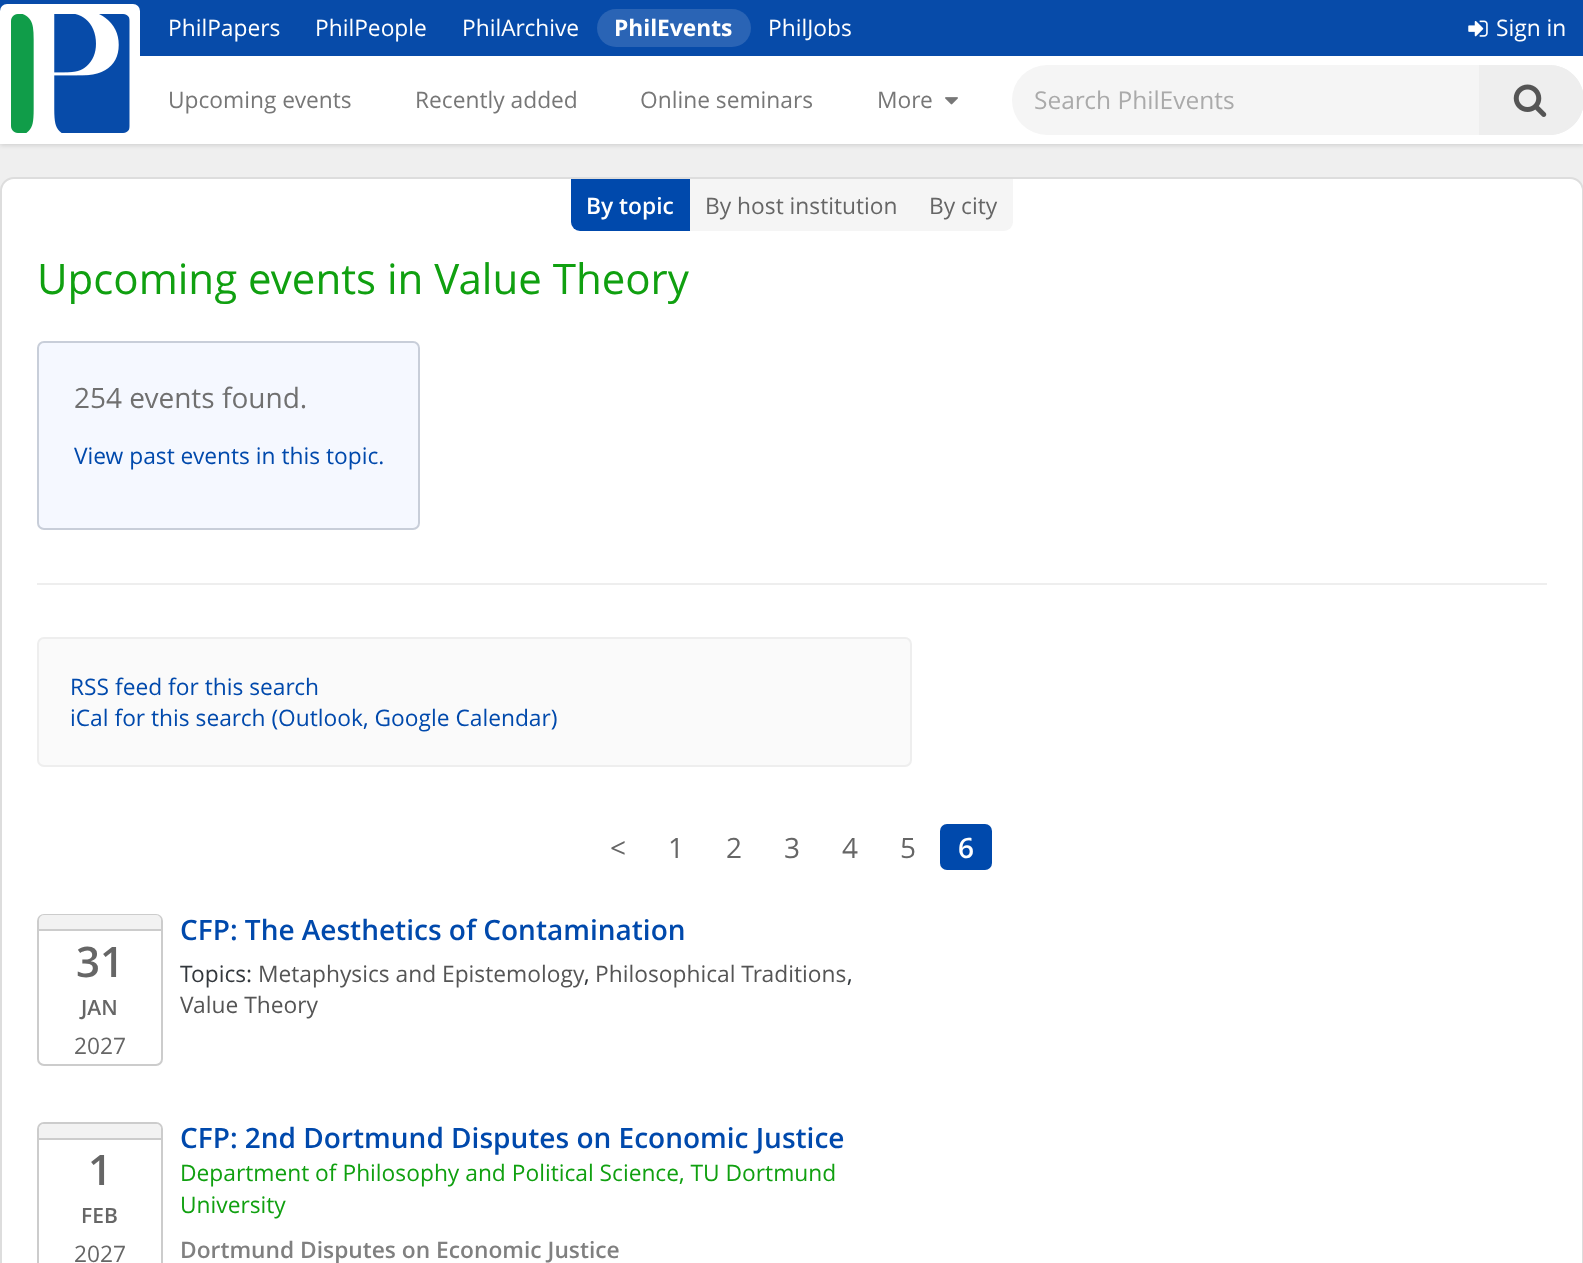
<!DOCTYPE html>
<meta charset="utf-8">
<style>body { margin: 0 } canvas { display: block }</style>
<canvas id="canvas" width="1583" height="1263"></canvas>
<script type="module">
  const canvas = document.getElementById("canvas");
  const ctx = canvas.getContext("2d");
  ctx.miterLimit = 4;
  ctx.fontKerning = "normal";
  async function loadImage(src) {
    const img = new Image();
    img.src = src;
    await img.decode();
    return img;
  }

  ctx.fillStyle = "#efefef";
  ctx.fillRect(0, 0, 1583, 1263);
  ctx.fillStyle = "rgba(0, 0, 0, 0.15)";
  ctx.filter = "blur(2.5px)";
  ctx.beginPath();
  ctx.rect(0, 2, 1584, 143);
  ctx.fill();
  ctx.filter = "none";
  ctx.fillStyle = "#074ba9";
  ctx.fillRect(0, 0, 1583, 56);
  ctx.font = "22.75px Open Sans";
  ctx.fillStyle = "#ffffff";
  ctx.fillText("PhilPapers", 168, 36);
  ctx.fillText("PhilPeople", 315, 36);
  ctx.fillText("PhilArchive", 462, 36);
  ctx.fillStyle = "#2a64b5";
  ctx.beginPath();
  ctx.roundRect(597, 9, 154, 38, 19);
  ctx.fill();
  ctx.font = "bold 22.75px Open Sans";
  ctx.fillStyle = "#ffffff";
  ctx.fillText("PhilEvents", 614, 36);
  ctx.font = "22.75px Open Sans";
  ctx.fillText("PhilJobs", 768, 36);
  ctx.drawImage(await loadImage("img1.png"), 1468, 20, 20, 17);
  ctx.fillText("Sign in", 1496, 36);
  ctx.fillRect(0, 56, 1583, 88);
  ctx.beginPath();
  ctx.roundRect(0, 4, 140, 140, 7);
  ctx.fill();
  ctx.drawImage(await loadImage("img2.png"), 11, 14, 119, 119);
  ctx.fillStyle = "#777777";
  ctx.fillText("Upcoming events", 168, 108);
  ctx.fillText("Recently added", 415, 108);
  ctx.fillText("Online seminars", 640, 108);
  ctx.fillText("More", 877, 108);
  ctx.drawImage(await loadImage("img3.png"), 945, 97, 13, 8);
  ctx.fillStyle = "#f5f5f5";
  ctx.beginPath();
  ctx.roundRect(1012, 65, 467, 70, [35, 0, 0, 35]);
  ctx.fill();
  ctx.font = "24.5px Open Sans";
  ctx.fillStyle = "#aaaaaa";
  ctx.fillText("Search PhilEvents", 1034, 109);
  ctx.fillStyle = "#eeeeee";
  ctx.beginPath();
  ctx.moveTo(1479, 65);
  ctx.lineTo(1549, 65);
  ctx.bezierCurveTo(1568.5, 65, 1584, 80.5, 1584, 100);
  ctx.bezierCurveTo(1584, 119.5, 1568.5, 135, 1549, 135);
  ctx.lineTo(1479, 135);
  ctx.closePath();
  ctx.fill();
  ctx.beginPath();
  ctx.moveTo(1479, 65);
  ctx.lineTo(1549, 65);
  ctx.bezierCurveTo(1568, 65, 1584, 80, 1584, 100);
  ctx.bezierCurveTo(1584, 119, 1568, 135, 1549, 135);
  ctx.lineTo(1479, 135);
  ctx.closePath();
  ctx.moveTo(1479, 66);
  ctx.lineTo(1549, 66);
  ctx.bezierCurveTo(1567, 66, 1582, 81, 1582, 100);
  ctx.bezierCurveTo(1582, 118, 1567, 133, 1549, 133);
  ctx.lineTo(1479, 133);
  ctx.closePath();
  ctx.fill("evenodd");
  ctx.drawImage(await loadImage("img4.png"), 1513, 84, 34, 33);
  ctx.fillStyle = "#ffffff";
  ctx.beginPath();
  ctx.roundRect(1, 178, 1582, 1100, 13);
  ctx.fill();
  ctx.strokeStyle = "#dddddd";
  ctx.lineWidth = 2;
  ctx.stroke();
  ctx.fillStyle = "#0049ac";
  ctx.beginPath();
  ctx.roundRect(571, 179, 119, 52, [0, 0, 0, 9]);
  ctx.fill();
  ctx.font = "600 22.75px Open Sans";
  ctx.fillStyle = "#ffffff";
  ctx.fillText("By topic", 586, 214);
  ctx.fillStyle = "#f5f5f5";
  ctx.fillRect(690, 179, 224, 52);
  ctx.font = "22.75px Open Sans";
  ctx.fillStyle = "#666666";
  ctx.fillText("By host institution", 705, 214);
  ctx.fillStyle = "#f5f5f5";
  ctx.beginPath();
  ctx.roundRect(914, 179, 99, 52, [0, 0, 9, 0]);
  ctx.fill();
  ctx.fillStyle = "#666666";
  ctx.fillText("By city", 929, 214);
  ctx.font = "42px Open Sans";
  ctx.fillStyle = "#10a010";
  ctx.fillText("Upcoming events in Value Theory", 37, 294);
  ctx.fillStyle = "#f5f8ff";
  ctx.beginPath();
  ctx.roundRect(38, 342, 381, 187, 6);
  ctx.fill();
  ctx.strokeStyle = "#c8ced9";
  ctx.stroke();
  ctx.font = "28px Open Sans";
  ctx.fillStyle = "#707070";
  ctx.fillText("254 events found.", 74, 408);
  ctx.font = "22.75px Open Sans";
  ctx.fillStyle = "#0049ac";
  ctx.fillText("View past events in this topic.", 74, 464);
  ctx.fillStyle = "#eeeeee";
  ctx.fillRect(37, 583, 1510, 2);
  ctx.fillStyle = "#fafafa";
  ctx.beginPath();
  ctx.roundRect(38, 638, 873, 128, 6);
  ctx.fill();
  ctx.strokeStyle = "#eeeeee";
  ctx.stroke();
  ctx.fillStyle = "#0049ac";
  ctx.fillText("RSS feed for this search", 70, 695);
  ctx.fillText("iCal for this search (Outlook, Google Calendar)", 70, 726);
  ctx.font = "28px Open Sans";
  ctx.fillStyle = "#666666";
  ctx.fillText("<", 610, 858);
  ctx.fillText("1", 668, 858);
  ctx.fillText("2", 726, 858);
  ctx.fillText("3", 784, 858);
  ctx.fillText("4", 842, 858);
  ctx.fillText("5", 900, 858);
  ctx.fillStyle = "#0049ac";
  ctx.beginPath();
  ctx.roundRect(940, 824, 52, 46, 7);
  ctx.fill();
  ctx.font = "600 28px Open Sans";
  ctx.fillStyle = "#ffffff";
  ctx.fillText("6", 958, 858);
  ctx.beginPath();
  ctx.roundRect(38, 915, 124, 150, 6);
  ctx.strokeStyle = "#cccccc";
  ctx.stroke();
  ctx.fillStyle = "#f2f2f2";
  ctx.beginPath();
  ctx.roundRect(39, 915, 122, 16, [5, 5, 0, 0]);
  ctx.fill();
  ctx.fillStyle = "#cccccc";
  ctx.fillRect(39, 929, 122, 2);
  ctx.font = "600 42px Open Sans";
  ctx.fillStyle = "#666666";
  ctx.fillText("31", 76, 977);
  ctx.font = "600 21px Open Sans";
  ctx.fillText("JAN", 81, 1015);
  ctx.font = "22.75px Open Sans";
  ctx.fillText("2027", 74, 1054);
  ctx.font = "600 28px Open Sans";
  ctx.fillStyle = "#0049ac";
  ctx.fillText("CFP: The Aesthetics of Contamination", 180, 940);
  ctx.font = "22.75px Open Sans";
  ctx.fillStyle = "#33383d";
  ctx.fillText("Topics:", 180, 982);
  ctx.fillStyle = "#555555";
  ctx.fillText("Metaphysics and Epistemology", 258, 982);
  ctx.fillStyle = "#33383d";
  ctx.fillText(",", 584, 982);
  ctx.fillStyle = "#555555";
  ctx.fillText("Philosophical Traditions", 595, 982);
  ctx.fillStyle = "#33383d";
  ctx.fillText(",", 847, 982);
  ctx.fillStyle = "#555555";
  ctx.fillText("Value Theory", 180, 1013);
  ctx.beginPath();
  ctx.roundRect(38, 1123, 124, 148, 6);
  ctx.stroke();
  ctx.fillStyle = "#f2f2f2";
  ctx.beginPath();
  ctx.roundRect(39, 1124, 122, 15, [5, 5, 0, 0]);
  ctx.fill();
  ctx.fillStyle = "#cccccc";
  ctx.fillRect(39, 1138, 122, 2);
  ctx.font = "600 42px Open Sans";
  ctx.fillStyle = "#666666";
  ctx.fillText("1", 88, 1185);
  ctx.font = "600 21px Open Sans";
  ctx.fillText("FEB", 81, 1223);
  ctx.font = "22.75px Open Sans";
  ctx.fillText("2027", 74, 1262);
  ctx.font = "600 28px Open Sans";
  ctx.fillStyle = "#0049ac";
  ctx.fillText("CFP: 2nd Dortmund Disputes on Economic Justice", 180, 1148);
  ctx.font = "22.75px Open Sans";
  ctx.fillStyle = "#10a010";
  ctx.fillText("Department of Philosophy and Political Science, TU Dortmund", 180, 1181);
  ctx.fillText("University", 180, 1213);
  ctx.font = "600 22.75px Open Sans";
  ctx.fillStyle = "#808080";
  ctx.fillText("Dortmund Disputes on Economic Justice", 180, 1258);
</script>
